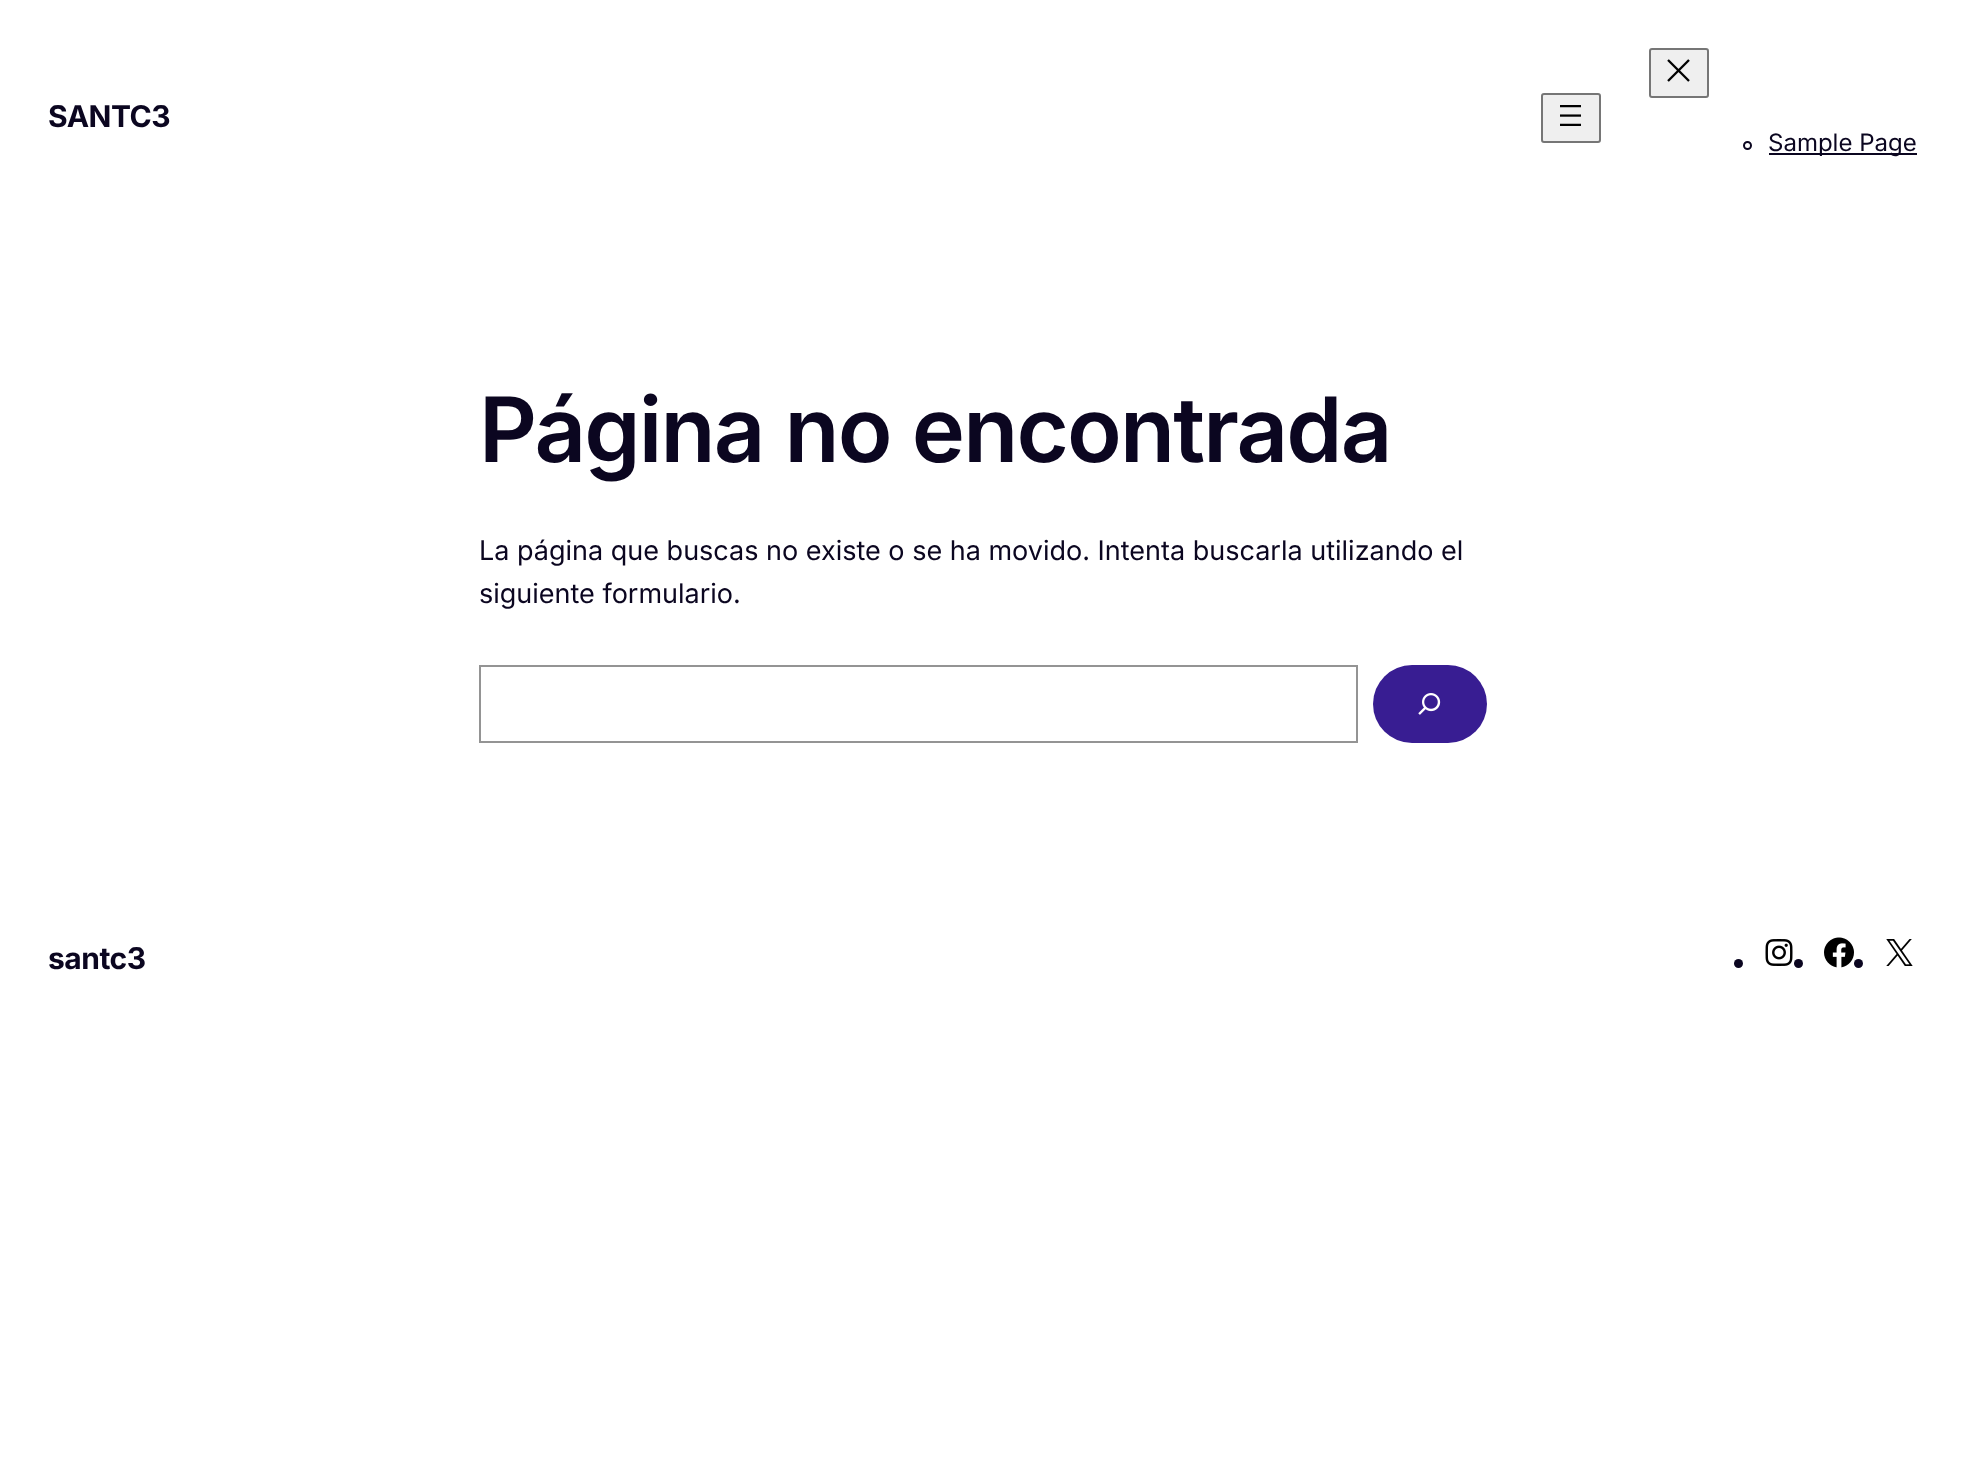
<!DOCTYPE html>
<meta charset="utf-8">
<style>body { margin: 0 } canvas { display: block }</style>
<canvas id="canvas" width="1965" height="1479"></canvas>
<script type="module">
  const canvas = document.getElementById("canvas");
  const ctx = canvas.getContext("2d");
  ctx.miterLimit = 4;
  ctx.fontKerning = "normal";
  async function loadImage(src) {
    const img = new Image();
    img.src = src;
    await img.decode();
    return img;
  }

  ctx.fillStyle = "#ffffff";
  ctx.fillRect(0, 0, 1965, 1479);
  ctx.letterSpacing = "-0.5px";
  ctx.font = "bold 30px Inter";
  ctx.fillStyle = "#0b0620";
  ctx.fillText("SANTC3", 48, 127);
  ctx.fillStyle = "#efefef";
  ctx.beginPath();
  ctx.roundRect(1542, 94, 58, 48, 2);
  ctx.fill();
  ctx.strokeStyle = "#767676";
  ctx.lineWidth = 2;
  ctx.stroke();
  ctx.drawImage(await loadImage("img1.png"), 1560, 105, 21, 21);
  ctx.beginPath();
  ctx.roundRect(1650, 49, 58, 48, 2);
  ctx.fill();
  ctx.stroke();
  ctx.drawImage(await loadImage("img2.png"), 1667, 59, 23, 23);
  ctx.beginPath();
  ctx.arc(1747.5, 145.5, 3.5, 0, Math.PI * 2);
  ctx.strokeStyle = "#0b0620";
  ctx.stroke();
  ctx.fillStyle = "#0b0620";
  ctx.fillRect(1769, 153, 148, 2);
  ctx.letterSpacing = "0px";
  ctx.font = "24px Inter";
  ctx.fillText("Sample Page", 1768, 151);
  ctx.letterSpacing = "-1.8px";
  ctx.font = "600 90px Inter";
  ctx.fillText("Página no encontrada", 479, 462);
  ctx.letterSpacing = "0px";
  ctx.font = "27px Inter";
  ctx.fillText("La página que buscas no existe o se ha movido. Intenta buscarla utilizando el", 479, 560);
  ctx.fillText("siguiente formulario.", 479, 603);
  ctx.strokeStyle = "#949494";
  ctx.strokeRect(480, 666, 877, 76);
  ctx.fillStyle = "#381d92";
  ctx.beginPath();
  ctx.roundRect(1373, 665, 114, 78, 39);
  ctx.fill();
  ctx.drawImage(await loadImage("img3.png"), 1418, 693, 23, 22);
  ctx.letterSpacing = "-0.5px";
  ctx.font = "bold 30px Inter";
  ctx.fillStyle = "#0b0620";
  ctx.fillText("santc3", 48, 969);
  ctx.beginPath();
  ctx.arc(1738.5, 963.5, 4.5, 0, Math.PI * 2);
  ctx.fill();
  ctx.drawImage(await loadImage("img4.png"), 1765, 939, 28, 27);
  ctx.beginPath();
  ctx.arc(1798.5, 963.5, 4.5, 0, Math.PI * 2);
  ctx.fill();
  ctx.drawImage(await loadImage("img5.png"), 1824, 937, 30, 31);
  ctx.beginPath();
  ctx.arc(1858.5, 963.5, 4.5, 0, Math.PI * 2);
  ctx.fill();
  ctx.drawImage(await loadImage("img6.png"), 1886, 939, 27, 27);
</script>
